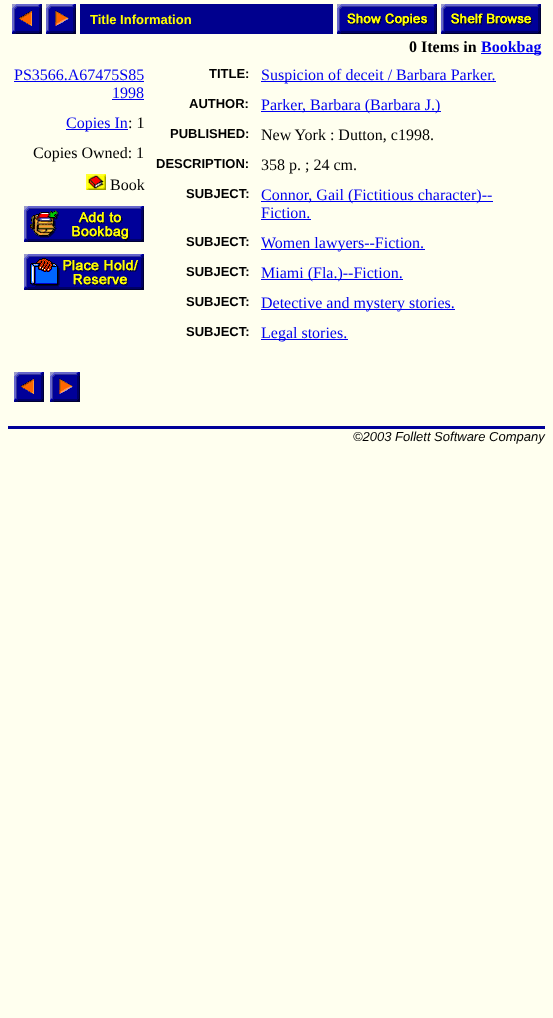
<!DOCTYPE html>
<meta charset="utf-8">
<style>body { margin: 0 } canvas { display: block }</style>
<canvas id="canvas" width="553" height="1018"></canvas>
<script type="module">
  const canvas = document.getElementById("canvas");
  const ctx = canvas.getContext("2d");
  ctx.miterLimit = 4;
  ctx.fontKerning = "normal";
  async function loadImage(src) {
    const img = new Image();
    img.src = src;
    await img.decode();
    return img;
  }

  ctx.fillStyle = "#ffffef";
  ctx.fillRect(0, 0, 553, 1018);
  ctx.drawImage(await loadImage("img1.png"), 12, 4, 30, 30);
  ctx.drawImage(await loadImage("img2.png"), 46, 4, 30, 30);
  ctx.fillStyle = "#00008e";
  ctx.fillRect(80, 4, 253, 30);
  ctx.font = "bold 13px Liberation Sans";
  ctx.fillStyle = "#ffff00";
  ctx.fillText("Title Information", 90, 24);
  ctx.drawImage(await loadImage("img3.png"), 337, 4, 100, 30);
  ctx.drawImage(await loadImage("img4.png"), 441, 4, 100, 30);
  ctx.font = "bold 16px Liberation Serif";
  ctx.fillStyle = "#000000";
  ctx.fillText("0 Items in", 409, 52);
  ctx.fillStyle = "#0000ee";
  ctx.fillRect(481, 53, 60, 1);
  ctx.fillText("Bookbag", 481, 52);
  ctx.font = "16px Liberation Serif";
  ctx.fillText("PS3566.A67475S85", 14, 80);
  ctx.fillRect(14, 81, 130, 1);
  ctx.fillText("1998", 112, 98);
  ctx.fillRect(112, 99, 32, 1);
  ctx.fillRect(66, 129, 62, 1);
  ctx.fillText("Copies In", 66, 128);
  ctx.fillStyle = "#000000";
  ctx.fillText(": 1", 128, 128);
  ctx.fillText("Copies Owned: 1", 33, 158);
  ctx.drawImage(await loadImage("img5.png"), 86, 174, 20, 16);
  ctx.fillText("Book", 110, 190);
  ctx.drawImage(await loadImage("img6.png"), 24, 206, 120, 36);
  ctx.drawImage(await loadImage("img7.png"), 24, 254, 120, 36);
  ctx.font = "bold 13px Liberation Sans";
  ctx.fillText("TITLE:", 209, 78);
  ctx.fillStyle = "#0000ee";
  ctx.fillRect(261, 81, 235, 1);
  ctx.font = "16px Liberation Serif";
  ctx.fillText("Suspicion of deceit / Barbara Parker.", 261, 80);
  ctx.font = "bold 13px Liberation Sans";
  ctx.fillStyle = "#000000";
  ctx.fillText("AUTHOR:", 189, 108);
  ctx.fillStyle = "#0000ee";
  ctx.fillRect(261, 111, 180, 1);
  ctx.font = "16px Liberation Serif";
  ctx.fillText("Parker, Barbara (Barbara J.)", 261, 110);
  ctx.font = "bold 13px Liberation Sans";
  ctx.fillStyle = "#000000";
  ctx.fillText("PUBLISHED:", 170, 138);
  ctx.font = "16px Liberation Serif";
  ctx.fillText("New York : Dutton, c1998.", 261, 140);
  ctx.font = "bold 13px Liberation Sans";
  ctx.fillText("DESCRIPTION:", 156, 168);
  ctx.font = "16px Liberation Serif";
  ctx.fillText("358 p. ; 24 cm.", 261, 170);
  ctx.font = "bold 13px Liberation Sans";
  ctx.fillText("SUBJECT:", 186, 198);
  ctx.fillStyle = "#0000ee";
  ctx.fillRect(261, 201, 232, 1);
  ctx.font = "16px Liberation Serif";
  ctx.fillText("Connor, Gail (Fictitious character)--", 261, 200);
  ctx.fillText("Fiction.", 261, 218);
  ctx.fillRect(261, 219, 50, 1);
  ctx.font = "bold 13px Liberation Sans";
  ctx.fillStyle = "#000000";
  ctx.fillText("SUBJECT:", 186, 246);
  ctx.fillStyle = "#0000ee";
  ctx.fillRect(261, 249, 164, 1);
  ctx.font = "16px Liberation Serif";
  ctx.fillText("Women lawyers--Fiction.", 261, 248);
  ctx.font = "bold 13px Liberation Sans";
  ctx.fillStyle = "#000000";
  ctx.fillText("SUBJECT:", 186, 276);
  ctx.fillStyle = "#0000ee";
  ctx.fillRect(261, 279, 142, 1);
  ctx.font = "16px Liberation Serif";
  ctx.fillText("Miami (Fla.)--Fiction.", 261, 278);
  ctx.font = "bold 13px Liberation Sans";
  ctx.fillStyle = "#000000";
  ctx.fillText("SUBJECT:", 186, 306);
  ctx.fillStyle = "#0000ee";
  ctx.fillRect(261, 309, 194, 1);
  ctx.font = "16px Liberation Serif";
  ctx.fillText("Detective and mystery stories.", 261, 308);
  ctx.font = "bold 13px Liberation Sans";
  ctx.fillStyle = "#000000";
  ctx.fillText("SUBJECT:", 186, 336);
  ctx.fillStyle = "#0000ee";
  ctx.fillRect(261, 339, 87, 1);
  ctx.font = "16px Liberation Serif";
  ctx.fillText("Legal stories.", 261, 338);
  ctx.drawImage(await loadImage("img1.png"), 14, 372, 30, 30);
  ctx.drawImage(await loadImage("img2.png"), 50, 372, 30, 30);
  ctx.fillStyle = "#000099";
  ctx.fillRect(8, 426, 537, 3);
  ctx.font = "italic 13px Liberation Sans";
  ctx.fillStyle = "#000000";
  ctx.fillText("©2003 Follett Software Company", 353, 441);
</script>
